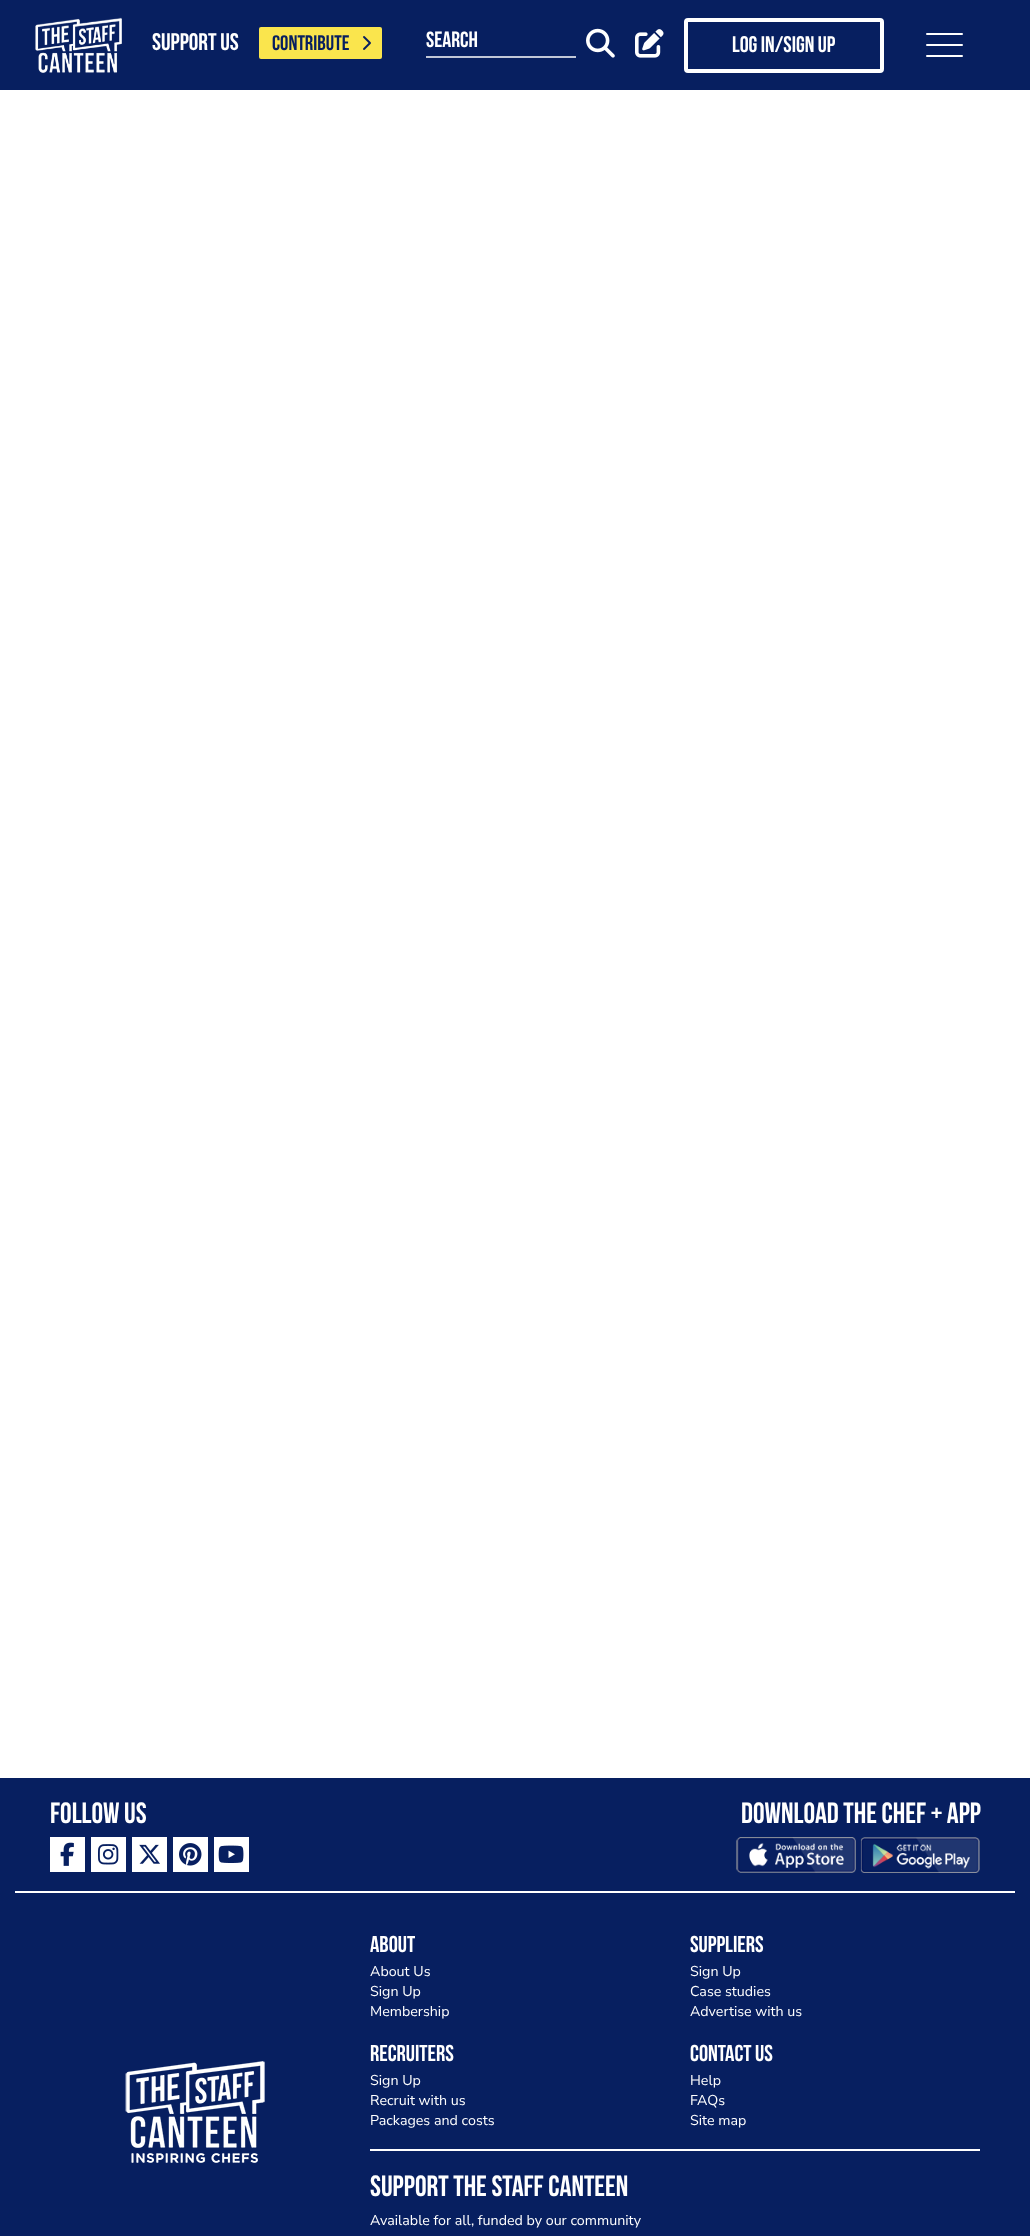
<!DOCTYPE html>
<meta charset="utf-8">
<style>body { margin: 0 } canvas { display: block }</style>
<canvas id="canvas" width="1030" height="2236"></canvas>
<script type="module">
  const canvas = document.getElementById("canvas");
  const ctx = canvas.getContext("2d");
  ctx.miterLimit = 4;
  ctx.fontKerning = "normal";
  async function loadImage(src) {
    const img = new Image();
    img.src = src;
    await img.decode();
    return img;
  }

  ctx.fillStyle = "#ffffff";
  ctx.fillRect(0, 0, 1030, 2236);
  ctx.fillStyle = "#071f60";
  ctx.fillRect(0, 0, 1030, 90);
  ctx.drawImage(await loadImage("img1.png"), 35, 17, 87, 56);
  ctx.font = "bold 24px Bebas Neue";
  ctx.fillStyle = "#ffffff";
  ctx.fillText("SUPPORT US", 152, 50);
  ctx.fillStyle = "#fae54d";
  ctx.beginPath();
  ctx.roundRect(259, 27, 123, 32, 2);
  ctx.fill();
  ctx.font = "bold 21px Bebas Neue";
  ctx.fillStyle = "#071f60";
  ctx.fillText("CONTRIBUTE", 272, 50);
  ctx.drawImage(await loadImage("img2.png"), 363, 36, 8, 14);
  ctx.fillStyle = "#c1c7d7";
  ctx.fillRect(426, 56, 150, 2);
  ctx.font = "bold 22px Bebas Neue";
  ctx.fillStyle = "#ffffff";
  ctx.fillText("search", 426, 47);
  ctx.drawImage(await loadImage("img3.png"), 586, 28, 29, 30);
  ctx.drawImage(await loadImage("img4.png"), 635, 29, 29, 29);
  ctx.beginPath();
  ctx.roundRect(686, 20, 196, 51, 2);
  ctx.strokeStyle = "#ffffff";
  ctx.lineWidth = 4;
  ctx.stroke();
  ctx.font = "bold 22.5px Bebas Neue";
  ctx.fillText("Log in/Sign up", 732, 52);
  ctx.beginPath();
  ctx.roundRect(926, 33, 37, 2, 1);
  ctx.fill();
  ctx.beginPath();
  ctx.roundRect(926, 44, 37, 2, 1);
  ctx.fill();
  ctx.beginPath();
  ctx.roundRect(926, 55, 37, 2, 1);
  ctx.fill();
  ctx.fillStyle = "#071f60";
  ctx.fillRect(0, 1778, 1030, 458);
  ctx.font = "bold 29.25px Bebas Neue";
  ctx.fillStyle = "#ffffff";
  ctx.fillText("Follow Us", 50, 1823);
  ctx.fillRect(50, 1837, 35, 35);
  ctx.drawImage(await loadImage("img5.png"), 60, 1842, 14, 24);
  ctx.fillRect(91, 1837, 35, 35);
  ctx.drawImage(await loadImage("img6.png"), 98, 1844, 21, 21);
  ctx.fillRect(132, 1837, 35, 35);
  ctx.drawImage(await loadImage("img7.png"), 139, 1844, 21, 20);
  ctx.fillRect(173, 1837, 35, 35);
  ctx.drawImage(await loadImage("img8.png"), 179, 1843, 23, 23);
  ctx.fillRect(214, 1837, 35, 35);
  ctx.drawImage(await loadImage("img9.png"), 218, 1845, 26, 18);
  ctx.fillText("Download the Chef + app", 741, 1823);
  ctx.drawImage(await loadImage("img10.png"), 736, 1837, 120, 36);
  ctx.drawImage(await loadImage("img11.png"), 860, 1837, 120, 36);
  ctx.fillRect(15, 1891, 1000, 2);
  ctx.drawImage(await loadImage("img12.png"), 125, 2061, 140, 102);
  ctx.font = "bold 23px Bebas Neue";
  ctx.fillText("About", 370, 1952);
  ctx.font = "200 14.25px Nunito Sans";
  ctx.fillText("About Us", 370, 1976);
  ctx.fillText("Sign Up", 370, 1996);
  ctx.fillText("Membership", 370, 2016);
  ctx.font = "bold 23px Bebas Neue";
  ctx.fillText("Suppliers", 690, 1952);
  ctx.font = "200 14.25px Nunito Sans";
  ctx.fillText("Sign Up", 690, 1976);
  ctx.fillText("Case studies", 690, 1996);
  ctx.fillText("Advertise with us", 690, 2016);
  ctx.font = "bold 23px Bebas Neue";
  ctx.fillText("Recruiters", 370, 2061);
  ctx.font = "200 14.25px Nunito Sans";
  ctx.fillText("Sign Up", 370, 2085);
  ctx.fillText("Recruit with us", 370, 2105);
  ctx.fillText("Packages and costs", 370, 2125);
  ctx.font = "bold 23px Bebas Neue";
  ctx.fillText("Contact Us", 690, 2061);
  ctx.font = "200 14.25px Nunito Sans";
  ctx.fillText("Help", 690, 2085);
  ctx.fillText("FAQs", 690, 2105);
  ctx.fillText("Site map", 690, 2125);
  ctx.fillRect(370, 2149, 610, 2);
  ctx.font = "bold 29.25px Bebas Neue";
  ctx.fillText("SUPPORT THE STAFF CANTEEN", 370, 2196);
  ctx.font = "200 14.25px Nunito Sans";
  ctx.fillText("Available for all, funded by our community", 370, 2225);
</script>
